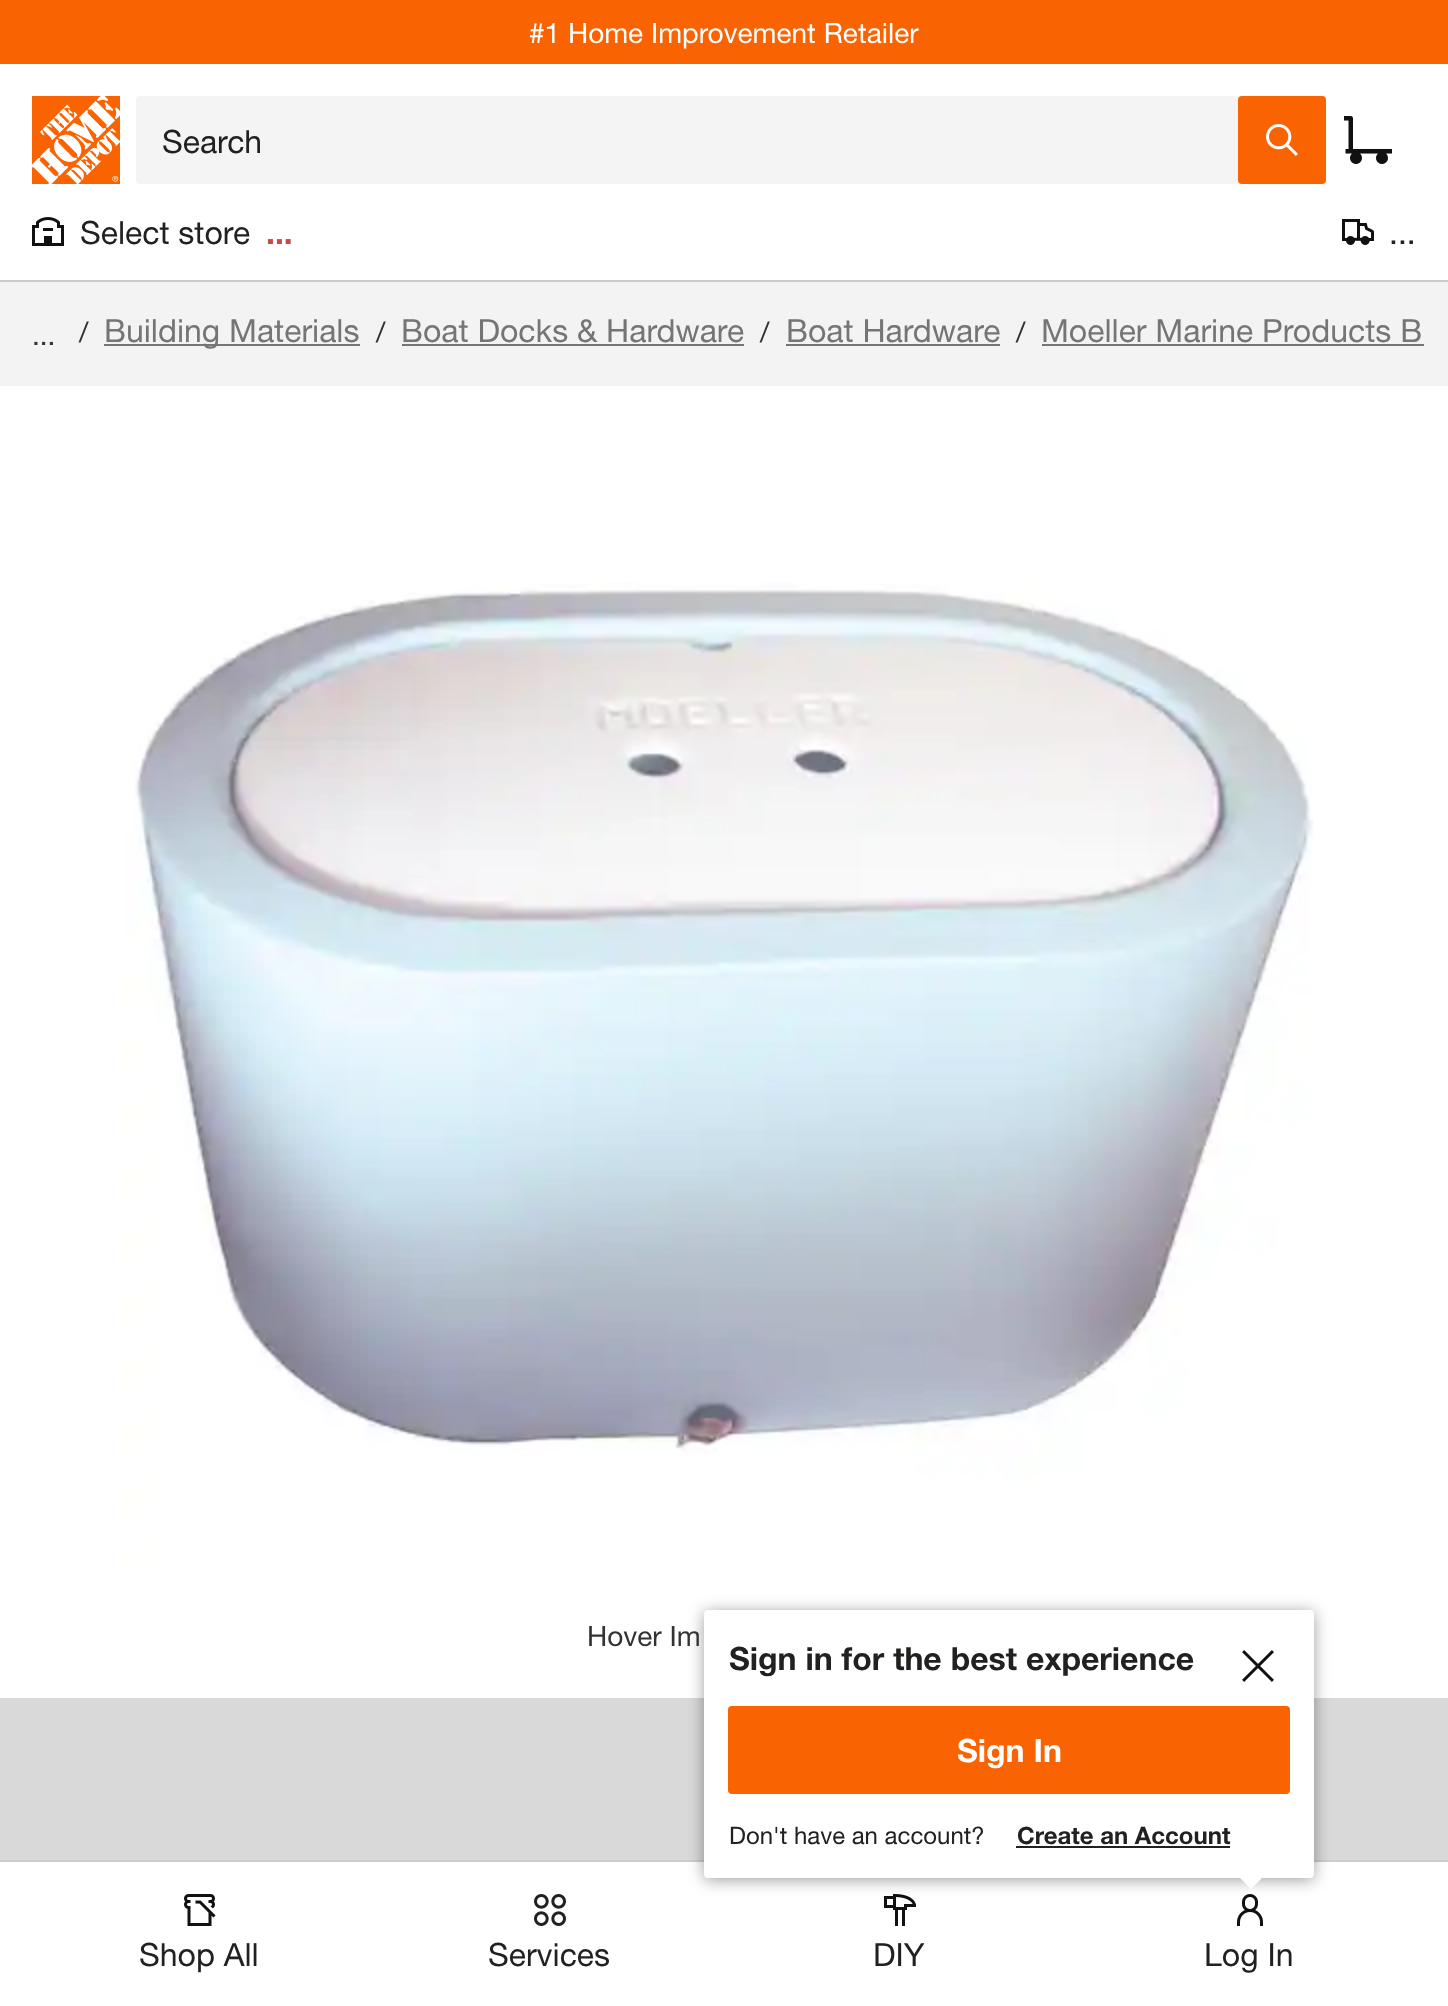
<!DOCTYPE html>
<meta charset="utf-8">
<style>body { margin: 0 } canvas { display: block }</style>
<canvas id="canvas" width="1448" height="2006"></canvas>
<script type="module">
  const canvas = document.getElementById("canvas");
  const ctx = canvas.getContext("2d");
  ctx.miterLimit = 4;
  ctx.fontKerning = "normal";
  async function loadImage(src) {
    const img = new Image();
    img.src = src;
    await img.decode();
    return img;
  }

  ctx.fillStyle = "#ffffff";
  ctx.fillRect(0, 0, 1448, 2006);
  ctx.fillStyle = "#f96302";
  ctx.fillRect(0, 0, 1448, 64);
  ctx.font = "28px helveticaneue";
  ctx.fillStyle = "#ffffff";
  ctx.fillText("#1 Home Improvement Retailer", 529, 43);
  ctx.fillStyle = "#cccccb";
  ctx.fillRect(0, 280, 1448, 2);
  ctx.drawImage(await loadImage("img1.png"), 32, 96, 88, 88);
  ctx.fillStyle = "#f4f4f4";
  ctx.beginPath();
  ctx.roundRect(136, 96, 1190, 88, 4);
  ctx.fill();
  ctx.font = "32px helveticaneue";
  ctx.fillStyle = "#212120";
  ctx.fillText("Search", 162, 153);
  ctx.fillStyle = "#f96302";
  ctx.beginPath();
  ctx.roundRect(1238, 96, 88, 88, 4);
  ctx.fill();
  ctx.drawImage(await loadImage("img2.png"), 1266, 124, 32, 32);
  ctx.drawImage(await loadImage("img3.png"), 1344, 116, 48, 48);
  ctx.drawImage(await loadImage("img4.png"), 32, 217, 32, 29);
  ctx.fillStyle = "#212120";
  ctx.fillText("Select store", 80, 244);
  ctx.font = "bold 32px 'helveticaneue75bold'";
  ctx.fillStyle = "#c64c4c";
  ctx.fillText("...", 266, 244);
  ctx.drawImage(await loadImage("img5.png"), 1342, 219, 32, 26);
  ctx.font = "32px helveticaneue";
  ctx.fillStyle = "#212120";
  ctx.fillText("...", 1389, 244);
  ctx.fillStyle = "#cccccb";
  ctx.fillRect(0, 1860, 1448, 2);
  ctx.drawImage(await loadImage("img9.png"), 884, 1894, 32, 32);
  ctx.drawImage(await loadImage("img10.png"), 1237, 1894, 26, 32);
  ctx.fillStyle = "#d9d9d9";
  ctx.fillRect(0, 1698, 1448, 162);
  ctx.fillStyle = "rgba(0, 0, 0, 0.38)";
  ctx.filter = "blur(8px)";
  ctx.beginPath();
  ctx.roundRect(704, 1612, 610, 268, 4);
  ctx.fill();
  ctx.filter = "none";
  ctx.fillStyle = "#ffffff";
  ctx.beginPath();
  ctx.roundRect(704, 1610, 610, 268, 4);
  ctx.fill();
  ctx.font = "bold 32px 'helveticaneue75bold'";
  ctx.fillStyle = "#212120";
  ctx.fillText("Sign in for the best experience", 729, 1670);
  ctx.drawImage(await loadImage("img6.png"), 1242, 1650, 32, 32);
  ctx.fillStyle = "#f96302";
  ctx.beginPath();
  ctx.roundRect(728, 1706, 562, 88, 4);
  ctx.fill();
  ctx.fillStyle = "#ffffff";
  ctx.fillText("Sign In", 957, 1762);
  ctx.font = "24px helveticaneue";
  ctx.fillStyle = "#212120";
  ctx.fillText("Don't have an account?", 729, 1844);
  ctx.font = "bold 24px 'helveticaneue75bold'";
  ctx.fillText("Create an Account", 1017, 1844);
  ctx.fillRect(1016, 1846, 214, 2);
  ctx.save();
  ctx.beginPath();
  ctx.moveTo(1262, 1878);
  ctx.lineTo(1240, 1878);
  ctx.lineTo(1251, 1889.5);
  ctx.closePath();
  ctx.clip();
  ctx.fillStyle = "rgba(0, 0, 0, 0.38)";
  ctx.filter = "blur(8px)";
  ctx.beginPath();
  ctx.rect(1242, 1872, 16, 16);
  ctx.fill();
  ctx.filter = "none";
  ctx.restore();
  ctx.fillStyle = "#ffffff";
  ctx.beginPath();
  ctx.moveTo(1262, 1878);
  ctx.lineTo(1251, 1889.5);
  ctx.lineTo(1240, 1878);
  ctx.closePath();
  ctx.fill();
  ctx.drawImage(await loadImage("img7.png"), 184, 1894, 32, 32);
  ctx.font = "32px helveticaneue";
  ctx.fillStyle = "#212120";
  ctx.fillText("Shop All", 139, 1966);
  ctx.drawImage(await loadImage("img8.png"), 534, 1894, 32, 32);
  ctx.fillText("Services", 488, 1966);
  ctx.fillText("DIY", 873, 1966);
  ctx.fillText("Log In", 1204, 1966);
  ctx.fillStyle = "#f3f3f3";
  ctx.fillRect(0, 282, 1448, 104);
  ctx.font = "28px helveticaneue";
  ctx.fillStyle = "#333333";
  ctx.fillText("...", 32, 345);
  ctx.fillText("/", 79, 342);
  ctx.fillStyle = "#757575";
  ctx.fillRect(104, 344, 256, 2);
  ctx.font = "32px helveticaneue";
  ctx.fillText("Building Materials", 104, 342);
  ctx.font = "28px helveticaneue";
  ctx.fillStyle = "#333333";
  ctx.fillText("/", 376, 342);
  ctx.font = "32px helveticaneue";
  ctx.fillStyle = "#757575";
  ctx.fillText("Boat Docks & Hardware", 401, 342);
  ctx.fillRect(402, 344, 342, 2);
  ctx.font = "28px helveticaneue";
  ctx.fillStyle = "#333333";
  ctx.fillText("/", 760, 342);
  ctx.font = "32px helveticaneue";
  ctx.fillStyle = "#757575";
  ctx.fillText("Boat Hardware", 786, 342);
  ctx.fillRect(786, 344, 214, 2);
  ctx.font = "28px helveticaneue";
  ctx.fillStyle = "#333333";
  ctx.fillText("/", 1016, 342);
  ctx.font = "32px helveticaneue";
  ctx.fillStyle = "#757575";
  ctx.fillText("Moeller Marine Products B", 1041, 342);
  ctx.fillRect(1042, 344, 382, 2);
  ctx.drawImage(await loadImage("img11.png"), 124, 582, 1190, 981);
  ctx.font = "28px helveticaneue";
  ctx.fillStyle = "#333333";
  ctx.fillText("Hover Im", 587, 1646);
</script>
